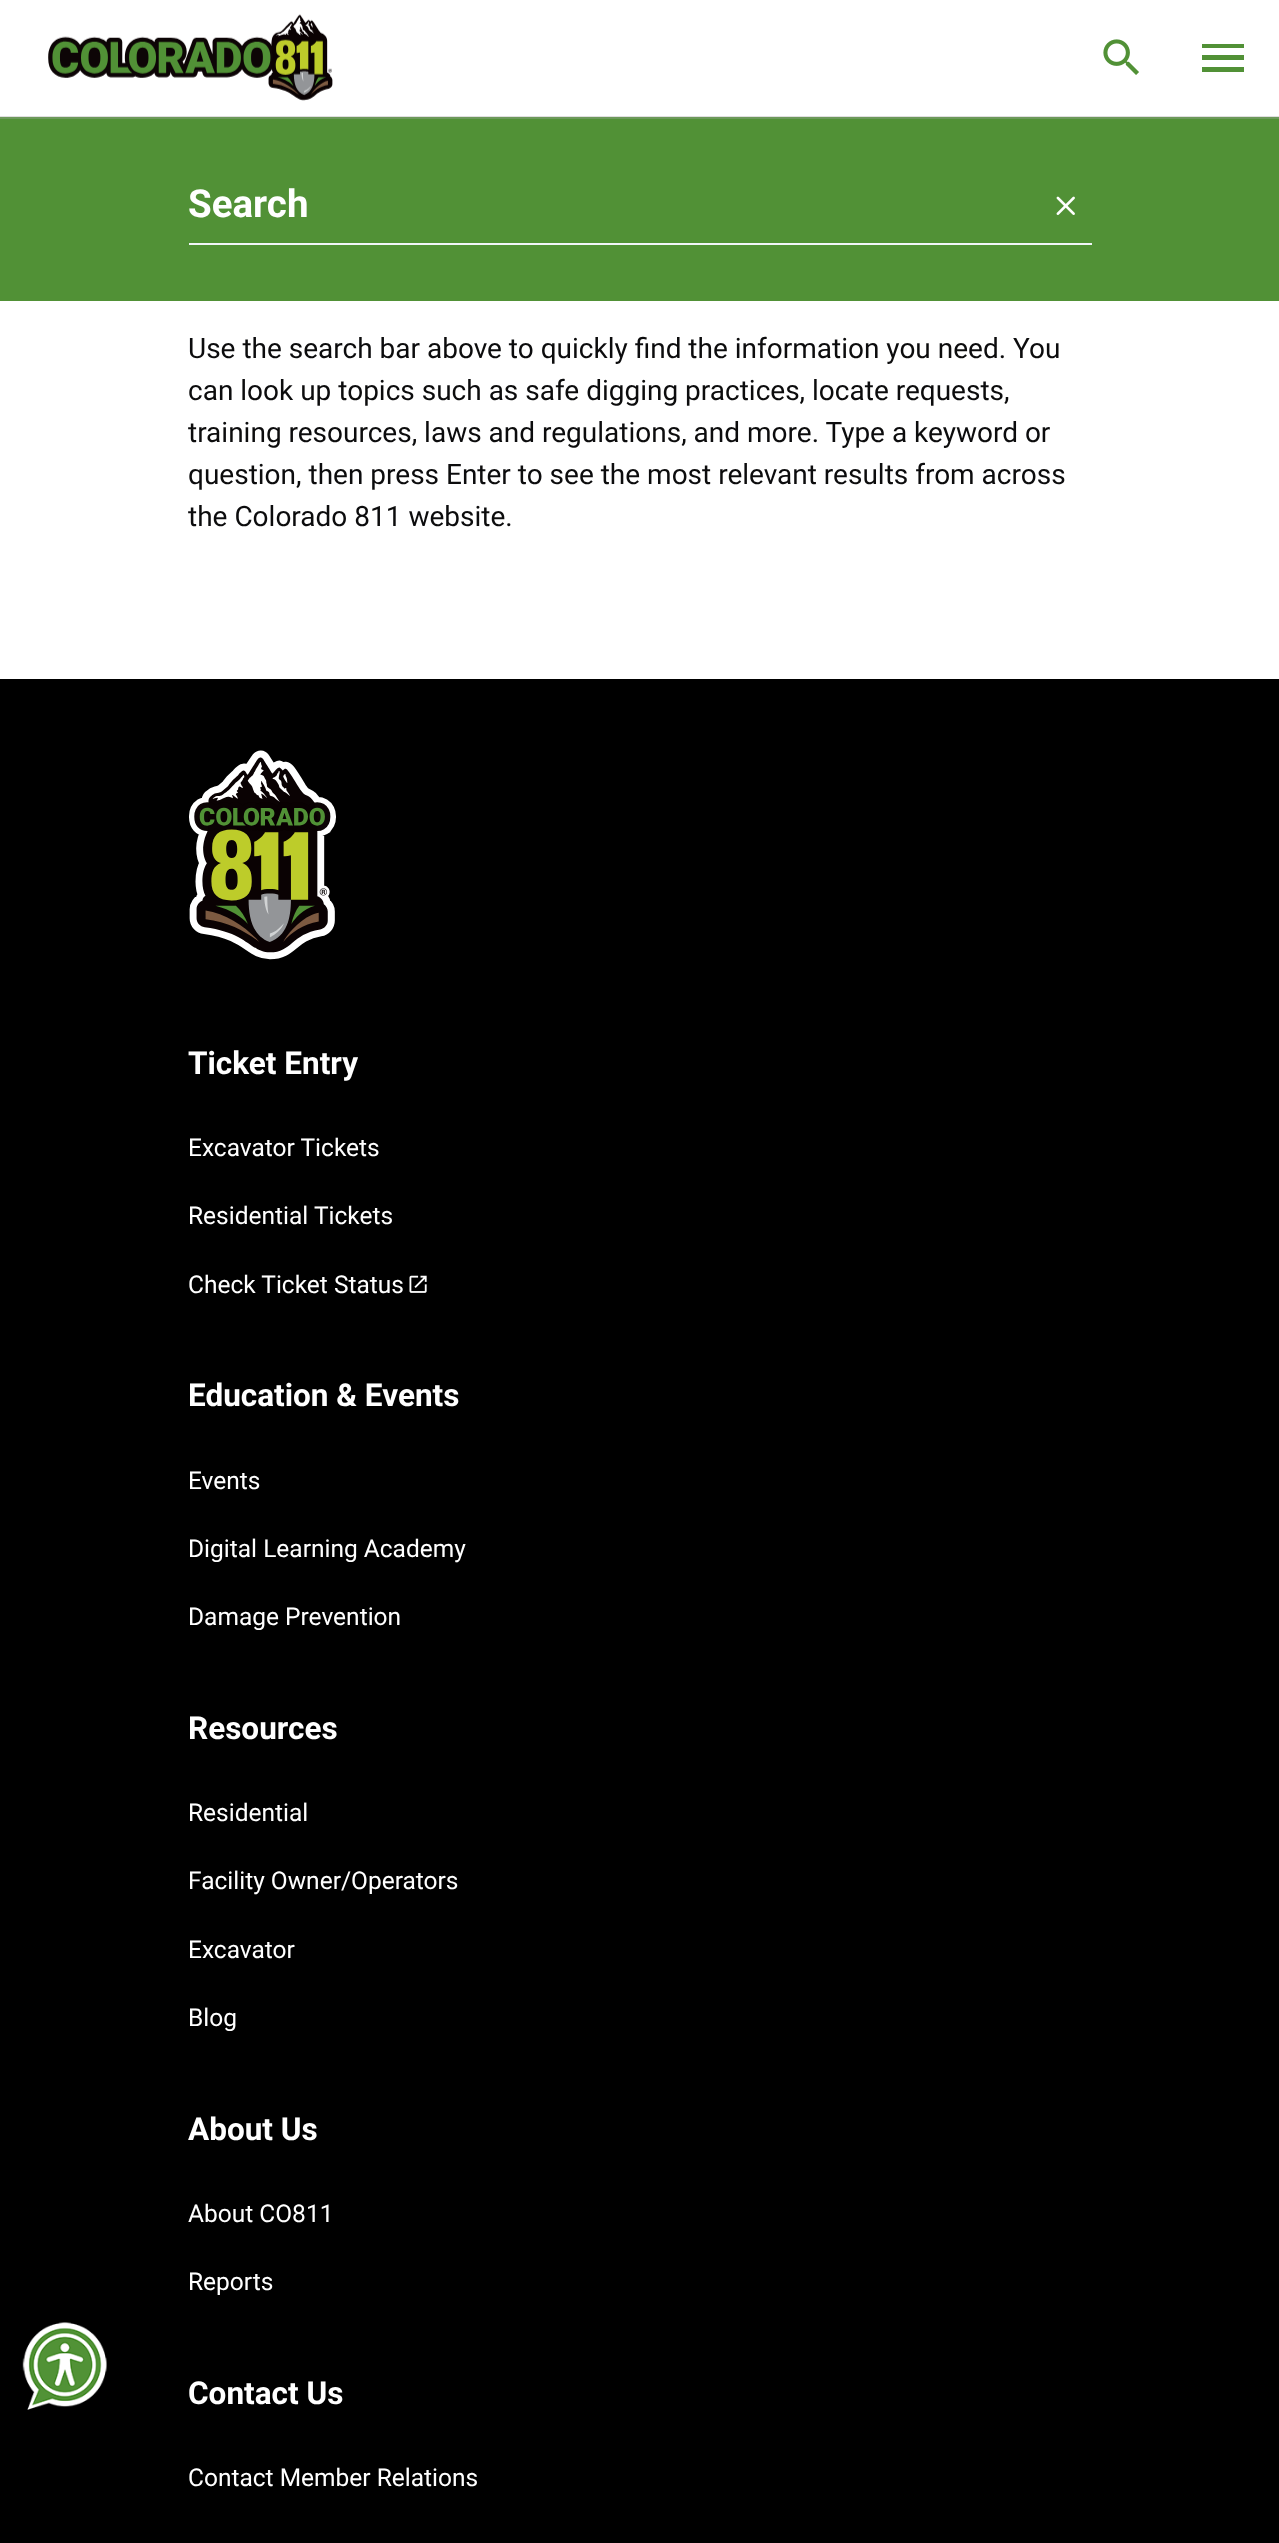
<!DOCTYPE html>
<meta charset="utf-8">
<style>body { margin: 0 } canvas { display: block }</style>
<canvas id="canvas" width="1279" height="2543"></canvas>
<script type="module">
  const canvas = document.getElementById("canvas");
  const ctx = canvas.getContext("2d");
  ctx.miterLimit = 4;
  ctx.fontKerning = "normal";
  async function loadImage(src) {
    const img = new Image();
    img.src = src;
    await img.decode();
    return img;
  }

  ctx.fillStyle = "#ffffff";
  ctx.fillRect(0, 0, 1279, 2543);
  ctx.fillStyle = "#6d995b";
  ctx.fillRect(0, 117, 1279, 2);
  ctx.fillStyle = "#dfdfdf";
  ctx.fillRect(0, 116, 1279, 1);
  ctx.drawImage(await loadImage("img1.png"), 48, 14, 285, 87);
  ctx.drawImage(await loadImage("img2.png"), 1103, 39, 36, 36);
  ctx.fillStyle = "#519136";
  ctx.beginPath();
  ctx.moveTo(1202, 72);
  ctx.lineTo(1202, 67);
  ctx.lineTo(1244, 67);
  ctx.lineTo(1244, 72);
  ctx.closePath();
  ctx.moveTo(1202, 60);
  ctx.lineTo(1202, 55);
  ctx.lineTo(1244, 55);
  ctx.lineTo(1244, 60);
  ctx.closePath();
  ctx.moveTo(1202, 48);
  ctx.lineTo(1202, 44);
  ctx.lineTo(1244, 44);
  ctx.lineTo(1244, 48);
  ctx.closePath();
  ctx.fill();
  ctx.fillRect(0, 119, 1279, 182);
  ctx.fillStyle = "#f1f5f9";
  ctx.fillRect(189, 243, 903, 2);
  ctx.font = "bold 38.5px Roboto";
  ctx.fillStyle = "#ffffff";
  ctx.fillText("Search", 188, 217);
  ctx.drawImage(await loadImage("img3.png"), 1056, 196, 19, 19);
  ctx.font = "28px Roboto";
  ctx.fillStyle = "#0c0c0d";
  ctx.fillText("Use the search bar above to quickly find the information you need. You", 188, 358);
  ctx.fillText("can look up topics such as safe digging practices, locate requests,", 188, 400);
  ctx.fillText("training resources, laws and regulations, and more. Type a keyword or", 188, 442);
  ctx.fillText("question, then press Enter to see the most relevant results from across", 188, 484);
  ctx.fillText("the Colorado 811 website.", 188, 526);
  ctx.fillStyle = "#000000";
  ctx.fillRect(0, 679, 1279, 1864);
  ctx.drawImage(await loadImage("img4.png"), 22, 2322, 85, 88);
  ctx.drawImage(await loadImage("img5.png"), 189, 750, 147, 210);
  ctx.font = "bold 31.5px Roboto";
  ctx.fillStyle = "#ffffff";
  ctx.fillText("Ticket Entry", 188, 1074);
  ctx.font = "24.5px Roboto";
  ctx.fillText("Excavator Tickets", 188, 1156);
  ctx.fillText("Residential Tickets", 188, 1224);
  ctx.fillText("Check Ticket Status", 188, 1293);
  ctx.drawImage(await loadImage("img6.png"), 409, 1275, 18, 18);
  ctx.font = "bold 31.5px Roboto";
  ctx.fillText("Education & Events", 188, 1406);
  ctx.font = "24.5px Roboto";
  ctx.fillText("Events", 188, 1489);
  ctx.fillText("Digital Learning Academy", 188, 1557);
  ctx.fillText("Damage Prevention", 188, 1625);
  ctx.font = "bold 31.5px Roboto";
  ctx.fillText("Resources", 188, 1739);
  ctx.font = "24.5px Roboto";
  ctx.fillText("Residential", 188, 1821);
  ctx.fillText("Facility Owner/Operators", 188, 1889);
  ctx.fillText("Excavator", 188, 1958);
  ctx.fillText("Blog", 188, 2026);
  ctx.font = "bold 31.5px Roboto";
  ctx.fillText("About Us", 188, 2140);
  ctx.font = "24.5px Roboto";
  ctx.fillText("About CO811", 188, 2222);
  ctx.fillText("Reports", 188, 2290);
  ctx.font = "bold 31.5px Roboto";
  ctx.fillText("Contact Us", 188, 2404);
  ctx.font = "24.5px Roboto";
  ctx.fillText("Contact Member Relations", 188, 2486);
</script>
